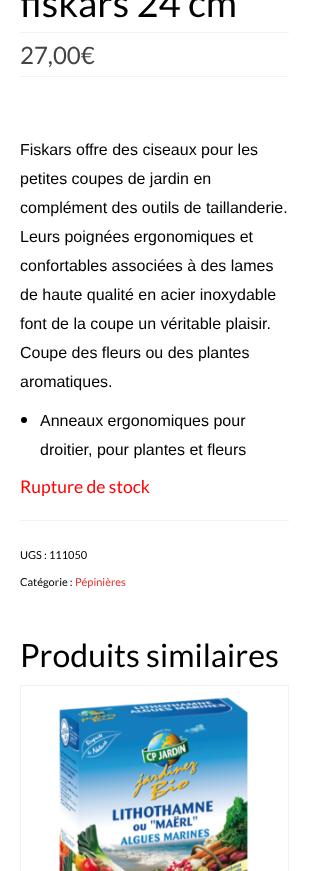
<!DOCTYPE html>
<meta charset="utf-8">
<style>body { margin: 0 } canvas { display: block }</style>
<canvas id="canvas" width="309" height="871"></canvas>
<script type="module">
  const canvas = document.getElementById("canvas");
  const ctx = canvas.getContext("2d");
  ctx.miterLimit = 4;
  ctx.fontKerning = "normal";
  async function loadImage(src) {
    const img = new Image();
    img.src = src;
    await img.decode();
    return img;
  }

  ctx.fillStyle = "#ffffff";
  ctx.fillRect(0, 0, 309, 871);
  ctx.font = "38px Lato";
  ctx.fillStyle = "#000000";
  ctx.fillText("fiskars 24 cm", 20, 17);
  ctx.fillStyle = "#f2f2f2";
  ctx.fillRect(20, 32, 269, 1);
  ctx.fillRect(20, 76, 269, 1);
  ctx.font = "24px Lato";
  ctx.fillStyle = "#444444";
  ctx.fillText("27,00€", 20, 64);
  ctx.font = "16px Liberation Sans";
  ctx.fillStyle = "#000000";
  ctx.fillText("Fiskars offre des ciseaux pour les", 20, 155);
  ctx.fillText("petites coupes de jardin en", 20, 184);
  ctx.fillText("complément des outils de taillanderie.", 20, 213);
  ctx.fillText("Leurs poignées ergonomiques et", 20, 242);
  ctx.fillText("confortables associées à des lames", 20, 271);
  ctx.fillText("de haute qualité en acier inoxydable", 20, 300);
  ctx.fillText("font de la coupe un véritable plaisir.", 20, 329);
  ctx.fillText("Coupe des fleurs ou des plantes", 20, 358);
  ctx.fillText("aromatiques.", 20, 387);
  ctx.beginPath();
  ctx.arc(24, 420, 3, 0, Math.PI * 2);
  ctx.fill();
  ctx.fillText("Anneaux ergonomiques pour", 40, 426);
  ctx.fillText("droitier, pour plantes et fleurs", 40, 455);
  ctx.font = "17.5px Lato";
  ctx.fillStyle = "#ff0000";
  ctx.fillText("Rupture de stock", 20, 493);
  ctx.fillStyle = "#f2f2f2";
  ctx.fillRect(20, 520, 269, 1);
  ctx.font = "11px Lato";
  ctx.fillStyle = "#000000";
  ctx.fillText("UGS : 111050", 20, 559);
  ctx.fillText("Catégorie :", 20, 586);
  ctx.fillStyle = "#dd3333";
  ctx.fillText("Pépinières", 75, 586);
  ctx.font = "32px Lato";
  ctx.fillStyle = "#000000";
  ctx.fillText("Produits similaires", 20, 667);
  ctx.strokeStyle = "#f2f2f2";
  ctx.strokeRect(20.5, 685.5, 268, 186);
  ctx.drawImage(await loadImage("img1.png"), 59, 697, 189, 174);
</script>
